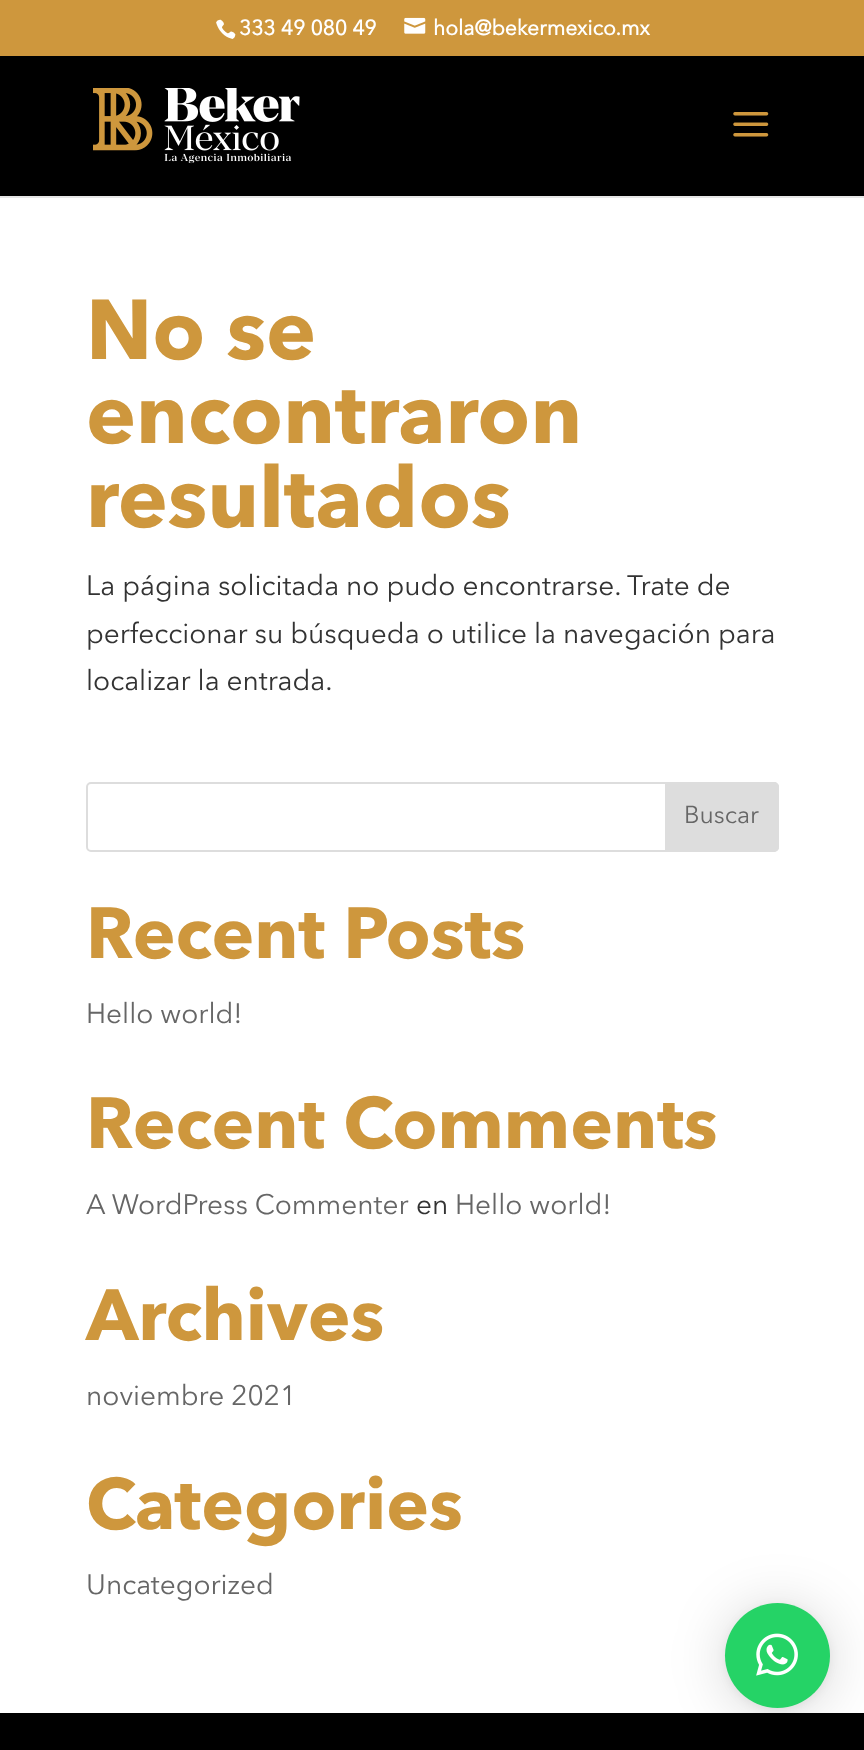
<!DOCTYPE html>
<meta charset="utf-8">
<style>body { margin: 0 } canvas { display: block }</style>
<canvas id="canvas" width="864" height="1750"></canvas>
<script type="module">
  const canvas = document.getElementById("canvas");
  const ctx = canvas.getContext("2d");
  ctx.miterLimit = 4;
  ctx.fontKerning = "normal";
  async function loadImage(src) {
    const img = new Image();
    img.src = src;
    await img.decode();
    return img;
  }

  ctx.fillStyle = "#ffffff";
  ctx.fillRect(0, 0, 864, 1750);
  ctx.fillStyle = "#ce973d";
  ctx.fillRect(0, 0, 864, 56);
  ctx.drawImage(await loadImage("img1.png"), 216, 19, 20, 20);
  ctx.font = "bold 21px 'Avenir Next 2'";
  ctx.fillStyle = "#ffffff";
  ctx.fillText("333 49 080 49", 239, 35);
  ctx.drawImage(await loadImage("img2.png"), 404, 17, 22, 17);
  ctx.fillText("hola@bekermexico.mx", 433, 35);
  ctx.fillStyle = "#e6e6e6";
  ctx.beginPath();
  ctx.moveTo(0, 196);
  ctx.lineTo(0, 198);
  ctx.lineTo(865, 198);
  ctx.lineTo(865, 58);
  ctx.lineTo(864, 58);
  ctx.lineTo(864, 196);
  ctx.closePath();
  ctx.fill();
  ctx.fillStyle = "#000000";
  ctx.fillRect(0, 56, 864, 140);
  ctx.drawImage(await loadImage("img3.png"), 93, 88, 207, 76);
  ctx.drawImage(await loadImage("img4.png"), 733, 112, 36, 25);
  ctx.font = "bold 84px Avenir Next";
  ctx.fillStyle = "#ce973d";
  ctx.fillText("No se", 86, 359);
  ctx.fillText("encontraron", 86, 443);
  ctx.fillText("resultados", 86, 527);
  ctx.font = "28px Avenir Next";
  ctx.fillStyle = "#333333";
  ctx.fillText("La página solicitada no pudo encontrarse. Trate de", 86, 595);
  ctx.fillText("perfeccionar su búsqueda o utilice la navegación para", 86, 643);
  ctx.fillText("localizar la entrada.", 86, 690);
  ctx.beginPath();
  ctx.roundRect(87, 783, 691, 68, 4);
  ctx.strokeStyle = "#dddddd";
  ctx.lineWidth = 2;
  ctx.stroke();
  ctx.fillStyle = "#dddddd";
  ctx.beginPath();
  ctx.roundRect(666, 783, 112, 68, [0, 4, 4, 0]);
  ctx.fill();
  ctx.stroke();
  ctx.font = "24.5px Avenir Next";
  ctx.fillStyle = "#666666";
  ctx.fillText("Buscar", 684, 823);
  ctx.font = "bold 71.75px Avenir Next";
  ctx.fillStyle = "#ce973d";
  ctx.fillText("Recent Posts", 86, 958);
  ctx.font = "28px Avenir Next";
  ctx.fillStyle = "#666666";
  ctx.fillText("Hello world!", 86, 1023);
  ctx.font = "bold 71.75px Avenir Next";
  ctx.fillStyle = "#ce973d";
  ctx.fillText("Recent Comments", 86, 1148);
  ctx.font = "28px Avenir Next";
  ctx.fillStyle = "#666666";
  ctx.fillText("A WordPress Commenter", 86, 1214);
  ctx.fillStyle = "#333333";
  ctx.fillText("en", 416, 1214);
  ctx.fillStyle = "#666666";
  ctx.fillText("Hello world!", 455, 1214);
  ctx.font = "bold 71.75px Avenir Next";
  ctx.fillStyle = "#ce973d";
  ctx.fillText("Archives", 86, 1340);
  ctx.font = "28px Avenir Next";
  ctx.fillStyle = "#666666";
  ctx.fillText("noviembre 2021", 86, 1405);
  ctx.font = "bold 71.75px Avenir Next";
  ctx.fillStyle = "#ce973d";
  ctx.fillText("Categories", 86, 1529);
  ctx.font = "28px Avenir Next";
  ctx.fillStyle = "#666666";
  ctx.fillText("Uncategorized", 86, 1594);
  ctx.fillStyle = "#000000";
  ctx.fillRect(0, 1713, 864, 37);
  ctx.fillStyle = "rgba(0, 0, 0, 0.16)";
  ctx.filter = "blur(28px)";
  ctx.beginPath();
  ctx.roundRect(725, 1607, 105, 105, 52.5);
  ctx.fill();
  ctx.filter = "none";
  ctx.fillStyle = "rgba(0, 0, 0, 0.06)";
  ctx.filter = "blur(5px)";
  ctx.beginPath();
  ctx.roundRect(725, 1605, 105, 105, 52.5);
  ctx.fill();
  ctx.filter = "none";
  ctx.fillStyle = "#25d366";
  ctx.beginPath();
  ctx.arc(777.5, 1655.5, 52.5, 0, Math.PI * 2);
  ctx.fill();
  ctx.drawImage(await loadImage("img5.png"), 756, 1633, 42, 43);
</script>
